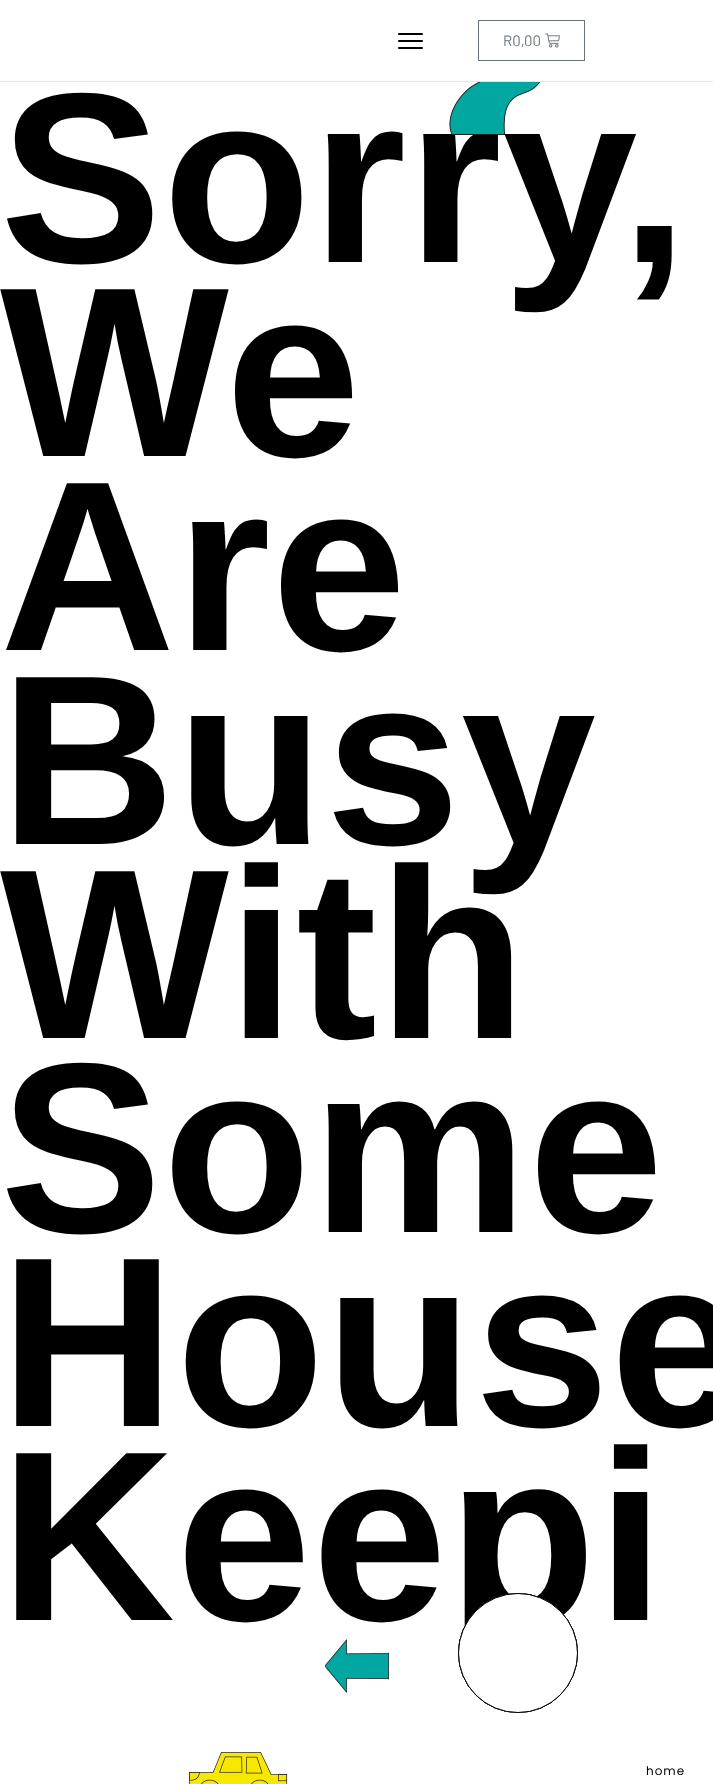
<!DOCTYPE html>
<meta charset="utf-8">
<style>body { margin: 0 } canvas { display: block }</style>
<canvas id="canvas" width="713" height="1784"></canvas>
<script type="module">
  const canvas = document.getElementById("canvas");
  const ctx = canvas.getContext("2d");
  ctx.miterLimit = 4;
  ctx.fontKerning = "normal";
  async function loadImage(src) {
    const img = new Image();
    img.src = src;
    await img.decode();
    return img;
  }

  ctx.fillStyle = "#ffffff";
  ctx.fillRect(0, 0, 713, 1784);
  ctx.fillStyle = "#e5e5e5";
  ctx.fillRect(0, 81, 713, 1);
  ctx.fillStyle = "#000000";
  ctx.beginPath();
  ctx.roundRect(398, 33, 25, 2, 1);
  ctx.fill();
  ctx.beginPath();
  ctx.roundRect(398, 40, 25, 2, 1);
  ctx.fill();
  ctx.beginPath();
  ctx.roundRect(398, 47, 25, 2, 1);
  ctx.fill();
  ctx.strokeStyle = "#69727d";
  ctx.strokeRect(478.5, 20.5, 106, 40);
  ctx.font = "15px Barlow";
  ctx.fillStyle = "#69727d";
  ctx.fillText("R0,00", 503, 46);
  ctx.drawImage(await loadImage("img1.png"), 545, 33, 15, 15);
  ctx.letterSpacing = "1px";
  ctx.font = "bold 242.5px Liberation Sans";
  ctx.fillStyle = "#000000";
  ctx.fillText("Sorry,", 0, 262);
  ctx.drawImage(await loadImage("img2.png"), 449, 82, 91, 53);
  ctx.fillText("We", 0, 456);
  ctx.fillText("Are", 0, 650);
  ctx.fillText("Busy", 0, 844);
  ctx.fillText("With", 0, 1038);
  ctx.fillText("Some", 0, 1232);
  ctx.fillText("House", 0, 1426);
  ctx.fillText("Keepi", 0, 1620);
  ctx.drawImage(await loadImage("img3.png"), 325, 1639, 64, 54);
  ctx.beginPath();
  ctx.arc(518, 1653, 59.5, 0, Math.PI * 2);
  ctx.strokeStyle = "#000000";
  ctx.stroke();
  ctx.beginPath();
  ctx.arc(518, 1653, 59.5, 0, Math.PI * 2);
  ctx.stroke();
  ctx.beginPath();
  ctx.arc(518, 1653, 59.5, 0, Math.PI * 2);
  ctx.stroke();
  ctx.fillStyle = "#ffffff";
  ctx.beginPath();
  ctx.arc(518, 1653, 59.5, 0, Math.PI * 2);
  ctx.fill();
  ctx.stroke();
  ctx.drawImage(await loadImage("img4.png"), 189, 1752, 99, 32);
  ctx.font = "12px Poppins";
  ctx.fillStyle = "#000000";
  ctx.fillText("home", 646, 1775);
</script>
